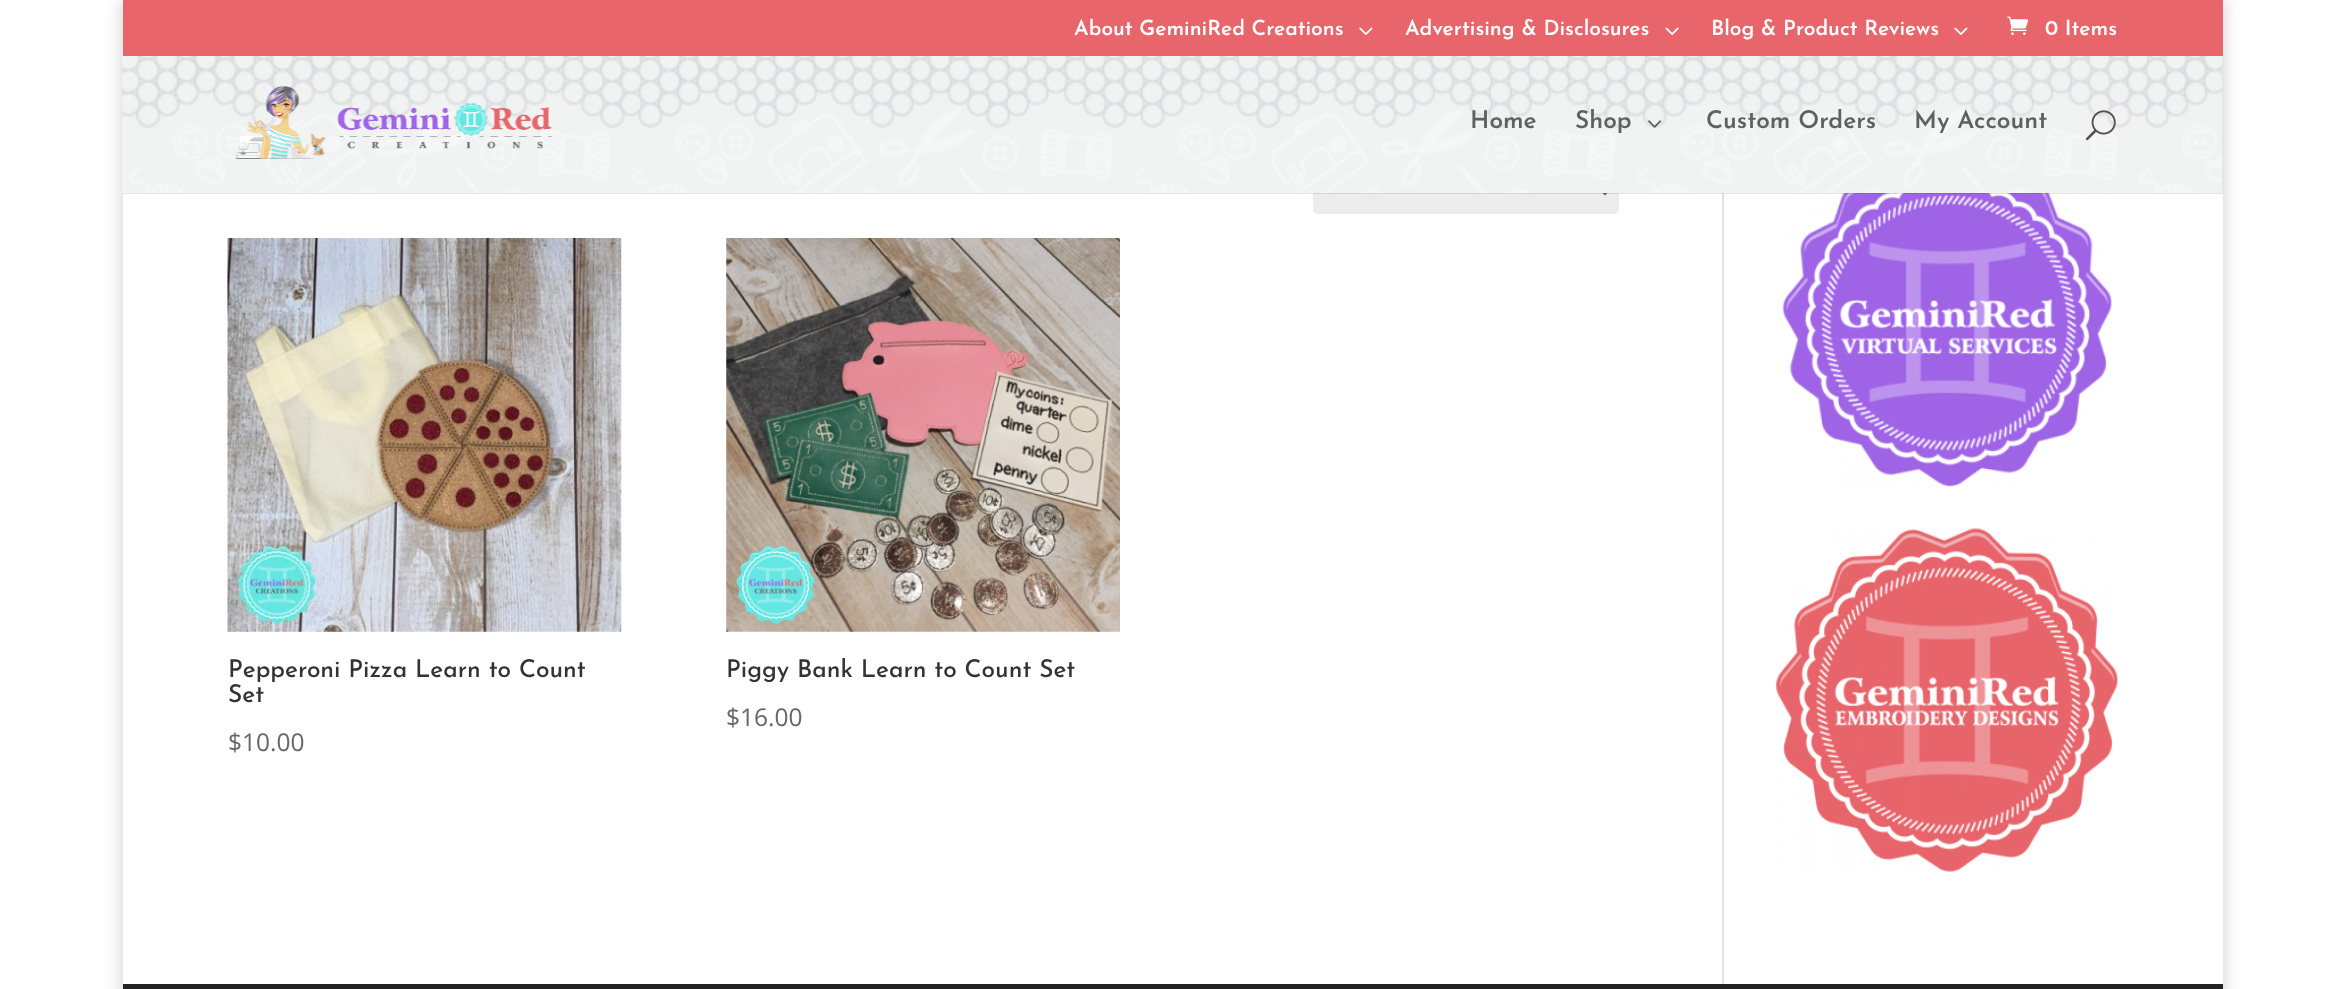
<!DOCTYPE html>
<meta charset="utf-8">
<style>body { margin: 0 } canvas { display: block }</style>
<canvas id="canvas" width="2345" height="989"></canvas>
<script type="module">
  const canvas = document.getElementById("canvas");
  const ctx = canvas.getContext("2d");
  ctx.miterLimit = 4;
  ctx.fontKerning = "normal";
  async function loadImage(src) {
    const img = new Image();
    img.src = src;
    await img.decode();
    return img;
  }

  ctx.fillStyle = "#ffffff";
  ctx.fillRect(0, 0, 2345, 989);
  ctx.fillStyle = "rgba(0, 0, 0, 0.2)";
  ctx.filter = "blur(9px)";
  ctx.beginPath();
  ctx.rect(123, 0, 2100, 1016);
  ctx.fill();
  ctx.filter = "none";
  ctx.fillStyle = "#ffffff";
  ctx.fillRect(123, 56, 2100, 928);
  ctx.fillStyle = "#ececec";
  ctx.beginPath();
  ctx.roundRect(1313, 166, 306, 48, 5);
  ctx.fill();
  ctx.beginPath();
  ctx.moveTo(1598, 186);
  ctx.lineTo(1605, 193);
  ctx.lineTo(1612, 186);
  ctx.strokeStyle = "#666666";
  ctx.lineWidth = 3.5;
  ctx.stroke();
  ctx.drawImage(await loadImage("img10.png"), 1782, 193, 330, 294);
  ctx.fillStyle = "#e2e2e2";
  ctx.fillRect(1722, 193, 2, 791);
  ctx.fillStyle = "rgba(0, 0, 0, 0.1)";
  ctx.beginPath();
  ctx.moveTo(123, 192);
  ctx.lineTo(123, 194);
  ctx.lineTo(2223, 194);
  ctx.lineTo(2223, 54);
  ctx.lineTo(2222, 54);
  ctx.lineTo(2222, 192);
  ctx.closePath();
  ctx.fill();
  ctx.drawImage(await loadImage("img4.png"), 122, 53, 2100, 140);
  ctx.fillStyle = "#e7656b";
  ctx.fillRect(123, 0, 2100, 56);
  ctx.font = "600 21px Josefin Sans";
  ctx.fillStyle = "#ffffff";
  ctx.fillText("About GeminiRed Creations", 1074, 35);
  ctx.drawImage(await loadImage("img1.png"), 1359, 27, 14, 8);
  ctx.fillText("Advertising & Disclosures", 1405, 35);
  ctx.drawImage(await loadImage("img2.png"), 1665, 27, 14, 8);
  ctx.fillText("Blog & Product Reviews", 1711, 35);
  ctx.drawImage(await loadImage("img1.png"), 1954, 27, 14, 8);
  ctx.drawImage(await loadImage("img3.png"), 2007, 16, 22, 19);
  ctx.fillText("0 Items", 2045, 35);
  ctx.drawImage(await loadImage("img5.png"), 234, 86, 319, 73);
  ctx.font = "600 24.5px Josefin Sans";
  ctx.fillStyle = "#5f6060";
  ctx.fillText("Home", 1470, 128);
  ctx.fillText("Shop", 1575, 128);
  ctx.drawImage(await loadImage("img6.png"), 1648, 120, 14, 8);
  ctx.fillText("Custom Orders", 1706, 128);
  ctx.fillText("My Account", 1914, 128);
  ctx.drawImage(await loadImage("img7.png"), 2085, 110, 31, 31);
  ctx.drawImage(await loadImage("img8.png"), 227, 238, 395, 394);
  ctx.font = "500 24.5px Josefin Sans";
  ctx.fillStyle = "#333333";
  ctx.fillText("Pepperoni Pizza Learn to Count", 228, 677);
  ctx.fillText("Set", 228, 702);
  ctx.font = "24.5px Open Sans";
  ctx.fillStyle = "#666666";
  ctx.fillText("$10.00", 228, 751);
  ctx.drawImage(await loadImage("img9.png"), 726, 238, 394, 394);
  ctx.font = "500 24.5px Josefin Sans";
  ctx.fillStyle = "#333333";
  ctx.fillText("Piggy Bank Learn to Count Set", 726, 677);
  ctx.font = "24.5px Open Sans";
  ctx.fillStyle = "#666666";
  ctx.fillText("$16.00", 726, 726);
  ctx.drawImage(await loadImage("img11.png"), 1776, 528, 342, 344);
  ctx.fillStyle = "#222222";
  ctx.fillRect(123, 984, 2100, 5);
</script>
